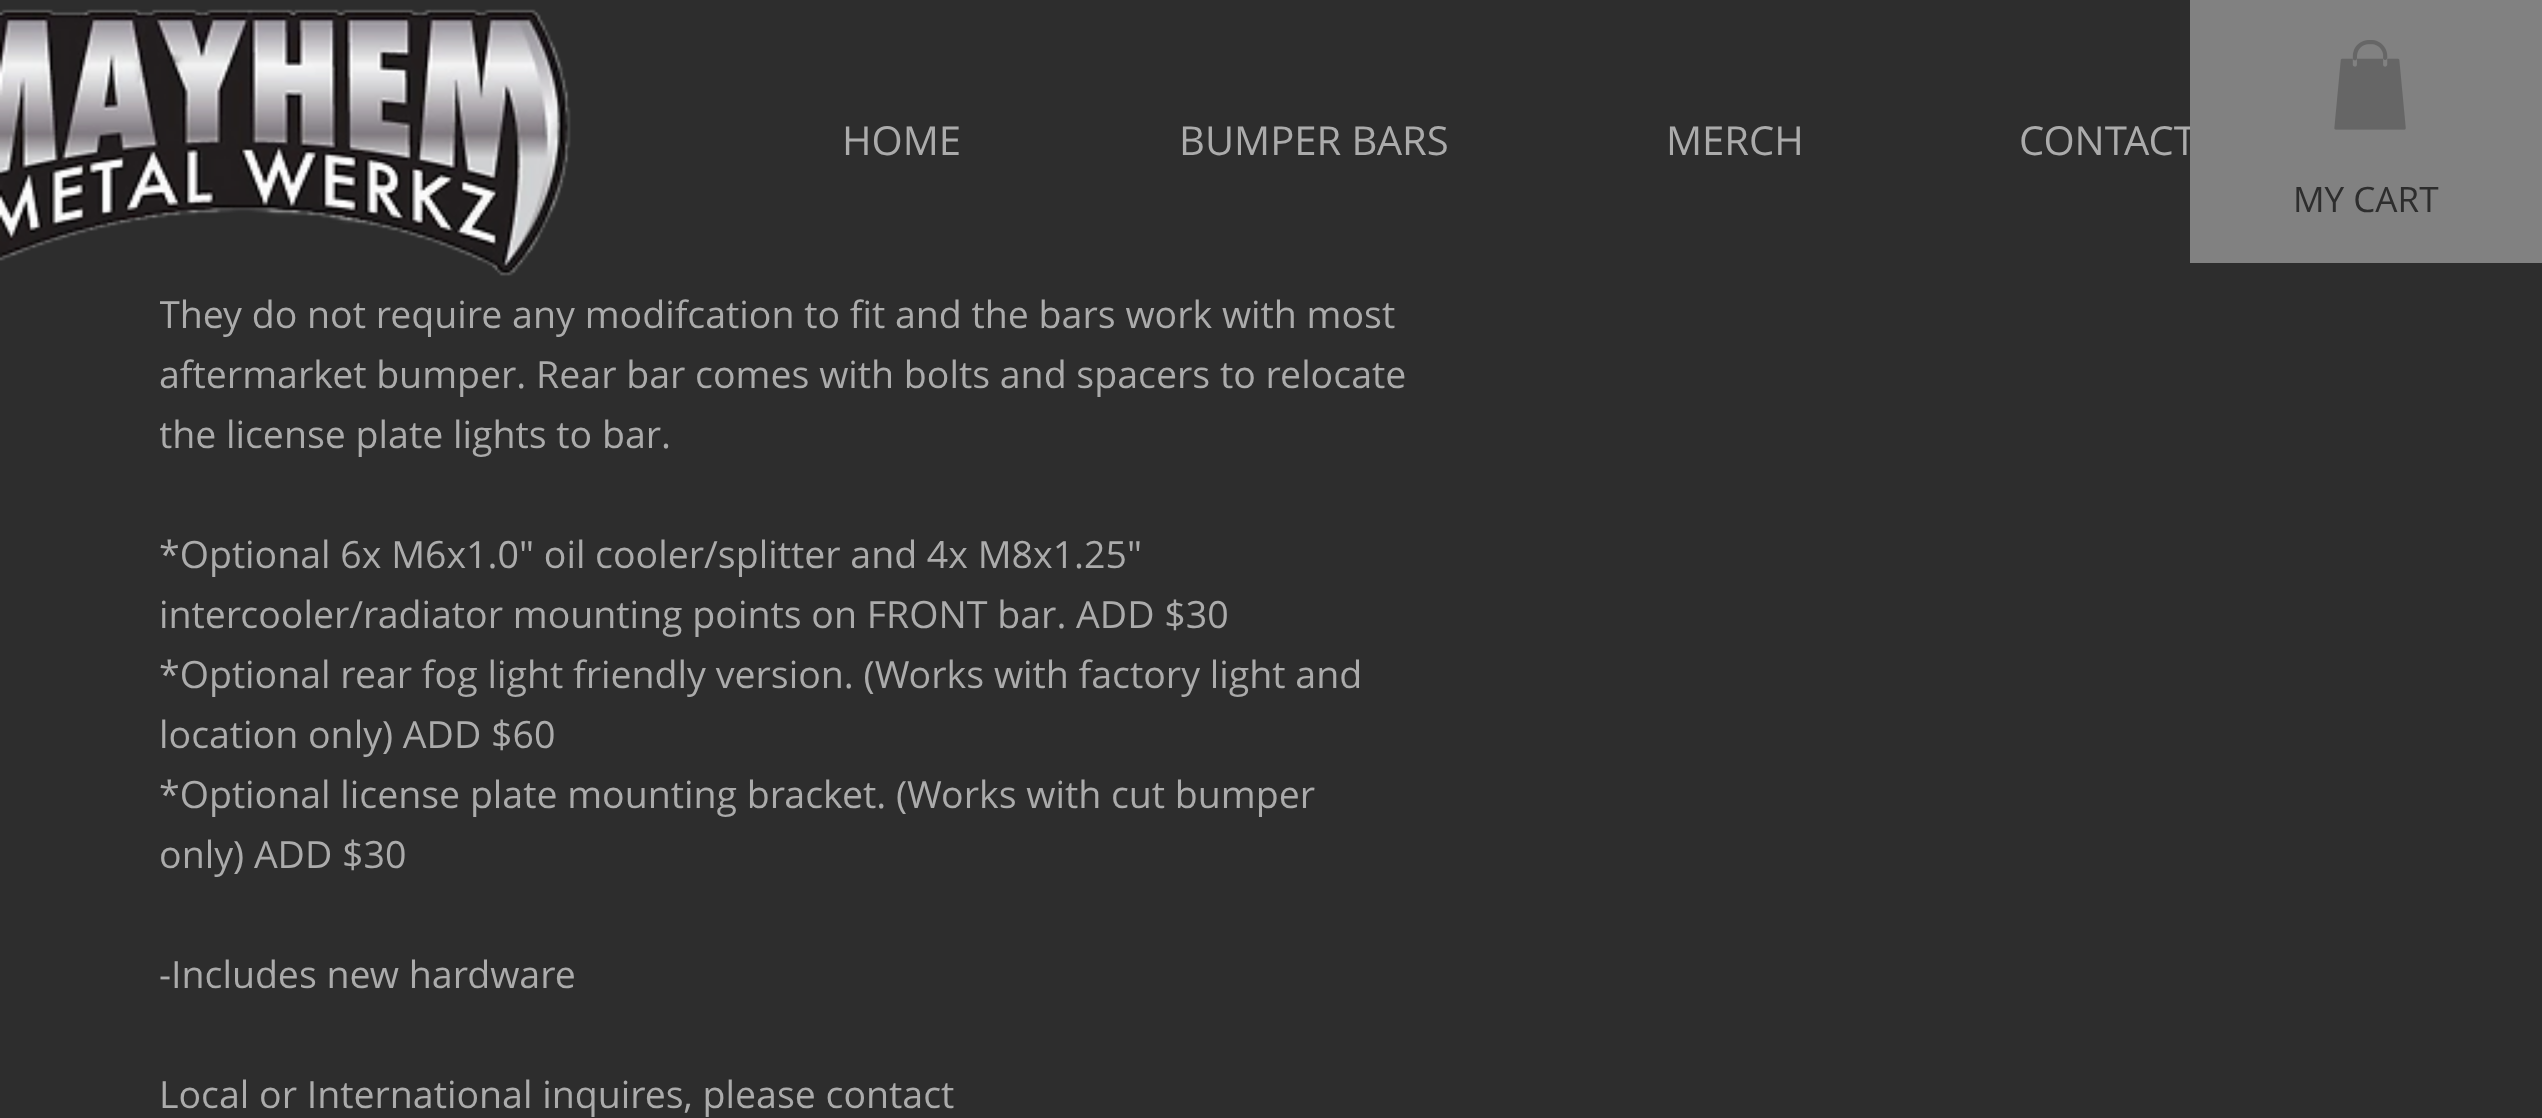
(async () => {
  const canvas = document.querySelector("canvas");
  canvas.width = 2542;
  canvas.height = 1118;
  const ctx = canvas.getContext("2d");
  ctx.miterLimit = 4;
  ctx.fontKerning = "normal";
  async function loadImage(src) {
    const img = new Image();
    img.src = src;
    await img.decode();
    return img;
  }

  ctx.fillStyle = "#2d2d2d";
  ctx.fillRect(0, 0, 2542, 1118);
  ctx.drawImage(await loadImage("img/1.png"), 0, 9, 571, 267);
  ctx.font = "40px Open Sans";
  ctx.fillStyle = "#ababab";
  for (const [text, x, y] of [
    ["HOME", 842, 155],
    ["BUMPER BARS", 1179, 155],
    ["MERCH", 1666, 155],
    ["CONTACT", 2019, 155],
  ]) {
    ctx.fillText(text, x, y);
  }
  ctx.fillStyle = "#818181";
  ctx.fillRect(2190, 0, 352, 263);
  ctx.drawImage(await loadImage("img/2.png"), 2334, 40, 72, 90);
  ctx.font = "35px Open Sans";
  ctx.fillStyle = "#2d2d2d";
  ctx.fillText("MY CART", 2293, 212);
  ctx.save();
  ctx.beginPath();
  ctx.rect(160, 163, 1250, 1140);
  ctx.clip();
  ctx.font = "37.5px Open Sans";
  ctx.fillStyle = "#ababab";
  ctx.fillText("They do not require any modifcation to fit and the bars work with most", 159, 328);
  ctx.restore();
  ctx.font = "37.5px Open Sans";
  ctx.fillStyle = "#ababab";
  ctx.fillText("aftermarket bumper. Rear bar comes with bolts and spacers to relocate", 159, 388);
  ctx.save();
  ctx.beginPath();
  ctx.rect(160, 163, 1250, 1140);
  ctx.clip();
  ctx.fillText("the license plate lights to bar.", 159, 448);
  ctx.restore();
  for (const [text, x, y] of [
    ["*Optional 6x M6x1.0\" oil cooler/splitter and 4x M8x1.25\"", 159, 568],
    ["intercooler/radiator mounting points on FRONT bar. ADD $30", 159, 628],
    ["*Optional rear fog light friendly version. (Works with factory light and", 159, 688],
    ["location only) ADD $60", 159, 748],
    ["*Optional license plate mounting bracket. (Works with cut bumper", 159, 808],
    ["only) ADD $30", 159, 868],
    ["-Includes new hardware", 159, 988],
    ["Local or International inquires, please contact", 159, 1108],
  ]) {
    ctx.fillText(text, x, y);
  }
})();
